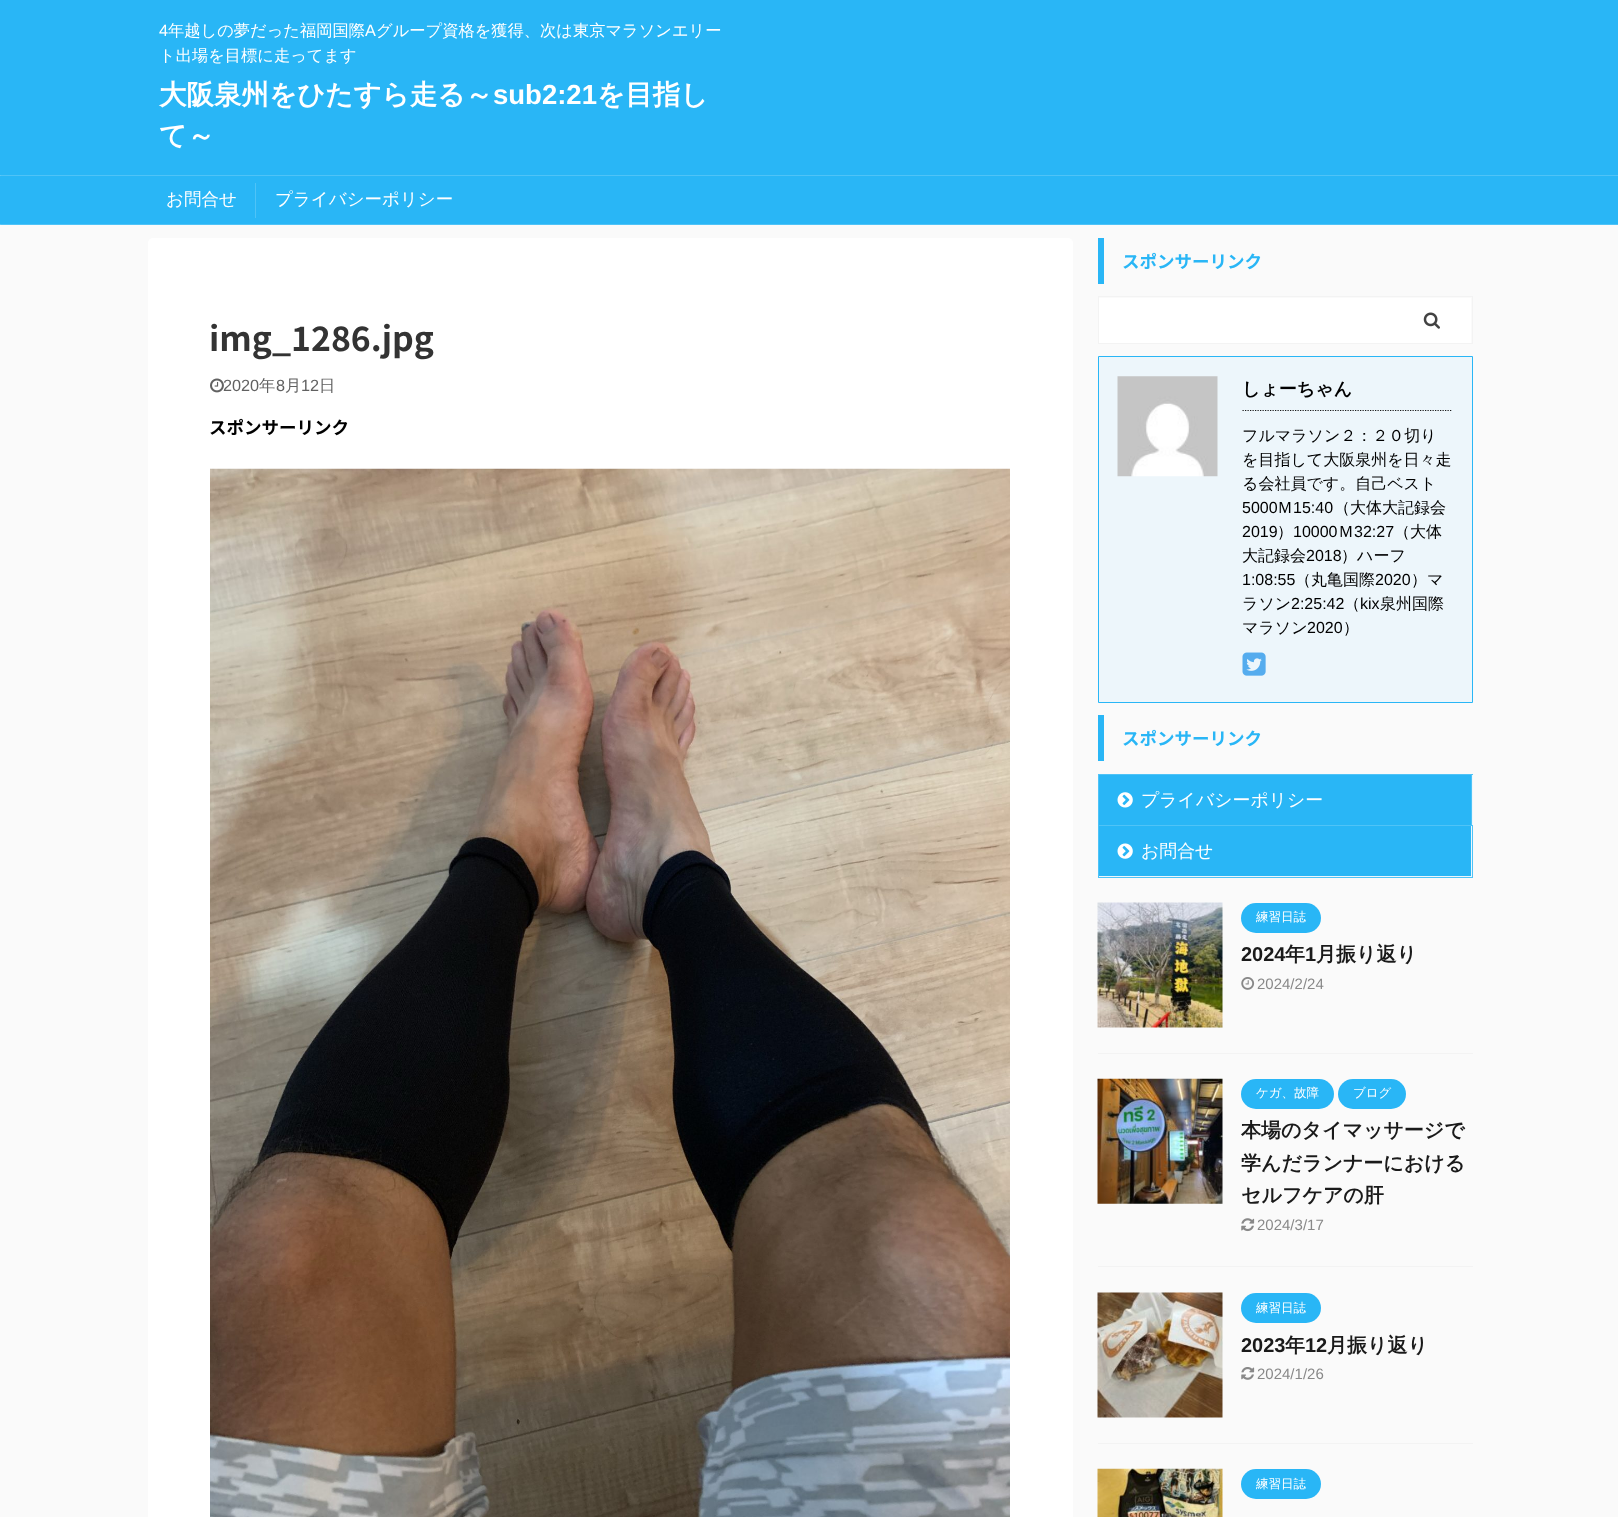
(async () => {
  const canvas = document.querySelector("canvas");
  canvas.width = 1618;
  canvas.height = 1517;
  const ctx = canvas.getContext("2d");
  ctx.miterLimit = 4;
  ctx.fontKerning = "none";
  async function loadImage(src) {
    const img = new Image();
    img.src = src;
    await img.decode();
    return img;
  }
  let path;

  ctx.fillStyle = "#fafafa";
  ctx.fillRect(0, 0, 1618, 1517);
  ctx.fillStyle = "#29b6f6";
  ctx.fillRect(0, 0, 1618, 175);
  ctx.beginPath();
  ctx.roundRect(0, 175, 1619, 50, 1);
  ctx.fill();
  for (const [x, y, w, h, color] of [
    [1, 175, 1617, 1, "#4fc3f7"],
    [1, 224, 1617, 1, "#4fc3f7"],
    [255, 183, 1, 35, "#4fc3f7"],
  ]) {
    ctx.fillStyle = color;
    ctx.fillRect(x, y, w, h);
  }
  ctx.fillStyle = "#ffffff";
  ctx.beginPath();
  ctx.roundRect(148, 238, 925, 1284, 5);
  ctx.fill();
  ctx.drawImage(await loadImage("img/1.png"), 210, 378, 14, 15);
  ctx.drawImage(await loadImage("img/2.png"), 210, 468, 800, 1049);
  ctx.fillStyle = "#29b6f6";
  ctx.fillRect(1098, 238, 6, 46);
  ctx.strokeStyle = "#f3f3f3";
  ctx.strokeRect(1098.5, 296.5, 374, 47);
  ctx.fillStyle = "#ffffff";
  ctx.fillRect(1099, 298, 372, 45);
  ctx.drawImage(await loadImage("img/3.png"), 1423, 312, 17, 17);
  ctx.fillStyle = "#edf6fb";
  ctx.beginPath();
  ctx.rect(1098.5, 356.5, 374, 346);
  ctx.fill();
  ctx.strokeStyle = "#29b6f6";
  ctx.stroke();
  ctx.drawImage(await loadImage("img/4.png"), 1117, 376, 101, 101);
  path = new Path2D("M1242.5 410.5H1452.5");
  ctx.strokeStyle = "#1a1a1a";
  ctx.lineWidth = 1.2;
  ctx.setLineDash([1.25, 1.25]);
  ctx.stroke(path);
  ctx.drawImage(await loadImage("img/5.png"), 1242, 652, 24, 24);
  for (const [x, y, w, h, color] of [
    [1098, 715, 6, 46, "#29b6f6"],
    [1099, 775, 374, 102, "#edf6fb"],
    [1098, 774, 375, 1, "#4fc3f7"],
    [1471, 774, 1, 51, "#4fc3f7"],
    [1098, 774, 1, 51, "#4fc3f7"],
    [1099, 775, 372, 50, "#29b6f6"],
  ]) {
    ctx.fillStyle = color;
    ctx.fillRect(x, y, w, h);
  }
  ctx.drawImage(await loadImage("img/6.png"), 1117, 792, 16, 16);
  ctx.strokeStyle = "#4fc3f7";
  ctx.lineWidth = 1;
  ctx.setLineDash([]);
  ctx.strokeRect(1098.5, 825.5, 374, 52);
  ctx.fillRect(1099, 826, 372, 50);
  ctx.drawImage(await loadImage("img/7.png"), 1117, 843, 16, 16);
  ctx.fillStyle = "#f3f3f3";
  ctx.fillRect(1098, 1053, 375, 1);
  ctx.drawImage(await loadImage("img/8.png"), 1097, 902, 126, 126);
  ctx.fillStyle = "#29b6f6";
  ctx.beginPath();
  ctx.roundRect(1241, 903, 80, 30, 15);
  ctx.fill();
  ctx.drawImage(await loadImage("img/9.png"), 1241, 977, 14, 13);
  ctx.fillStyle = "#f3f3f3";
  ctx.fillRect(1098, 1266, 375, 1);
  ctx.drawImage(await loadImage("img/10.png"), 1097, 1078, 126, 126);
  ctx.fillStyle = "#29b6f6";
  ctx.beginPath();
  ctx.roundRect(1241, 1079, 93, 30, 15);
  ctx.fill();
  ctx.beginPath();
  ctx.roundRect(1338, 1079, 68, 30, 15);
  ctx.fill();
  ctx.drawImage(await loadImage("img/11.png"), 1241, 1218, 14, 14);
  ctx.fillStyle = "#f3f3f3";
  ctx.fillRect(1098, 1443, 375, 1);
  ctx.drawImage(await loadImage("img/12.png"), 1097, 1292, 126, 126);
  ctx.fillStyle = "#29b6f6";
  ctx.beginPath();
  ctx.roundRect(1241, 1293, 80, 30, 15);
  ctx.fill();
  ctx.drawImage(await loadImage("img/13.png"), 1241, 1367, 14, 13);
  ctx.drawImage(await loadImage("img/14.png"), 1097, 1468, 126, 49);
  ctx.beginPath();
  ctx.roundRect(1241, 1469, 80, 30, 15);
  ctx.fill();
  ctx.font = "16.25px Liberation Sans";
  ctx.fillStyle = "#ffffff";
  ctx.fillText("4", 159, 36);
  ctx.font = "500 16.25px WenQuanYi Zen Hei";
  ctx.fillText("年越しの夢だった福岡国際", 168, 36);
  ctx.font = "16.25px Liberation Sans";
  ctx.fillText("A", 365, 36);
  ctx.font = "500 16.25px WenQuanYi Zen Hei";
  ctx.fillText("グループ資格を獲得、次は東京マラソンエリー", 376, 36);
  ctx.fillText("ト出場を目標に走ってます", 159, 61);
  ctx.font = "bold 27.5px WenQuanYi Zen Hei";
  ctx.fillText("大阪泉州をひたすら走る～", 159, 104);
  ctx.font = "bold 27.5px Liberation Sans";
  ctx.fillText("sub2:21", 493, 104);
  ctx.font = "bold 27.5px WenQuanYi Zen Hei";
  ctx.fillText("を目指し", 597, 104);
  ctx.fillText("て～", 159, 145);
  ctx.font = "500 17.5px WenQuanYi Zen Hei";
  ctx.fillText("お問合せ", 166, 205);
  ctx.fillText("プライバシーポリシー", 275, 205);
  ctx.font = "bold 33.75px Noto Sans JP";
  ctx.fillStyle = "#333333";
  ctx.fillText("img_1286.jpg", 209, 351);
  ctx.font = "16.25px Liberation Sans";
  ctx.fillStyle = "#616161";
  ctx.fillText("2020", 223, 391);
  ctx.font = "500 16.25px WenQuanYi Zen Hei";
  ctx.fillText("年", 259, 391);
  ctx.font = "16.25px Liberation Sans";
  ctx.fillText("8", 276, 391);
  ctx.font = "500 16.25px WenQuanYi Zen Hei";
  ctx.fillText("月", 285, 391);
  ctx.font = "16.25px Liberation Sans";
  ctx.fillText("12", 301, 391);
  ctx.font = "500 16.25px WenQuanYi Zen Hei";
  ctx.fillText("日", 319, 391);
  ctx.font = "bold 17.5px Noto Sans JP";
  ctx.fillStyle = "#000000";
  ctx.fillText("スポンサーリンク", 209, 434);
  ctx.fillStyle = "#29b6f6";
  ctx.fillText("スポンサーリンク", 1122, 268);
  ctx.font = "bold 18px WenQuanYi Zen Hei";
  ctx.fillStyle = "#000000";
  ctx.fillText("しょーちゃん", 1242, 395);
  ctx.font = "500 16px WenQuanYi Zen Hei";
  for (const [text, x, y] of [
    ["フルマラソン２：２０切り", 1242, 441],
    ["を目指して大阪泉州を日々走", 1242, 465],
    ["る会社員です。自己ベスト", 1242, 489],
  ]) {
    ctx.fillText(text, x, y);
  }
  ctx.font = "16px Liberation Sans";
  ctx.fillText("5000", 1242, 513);
  ctx.font = "500 16px WenQuanYi Zen Hei";
  ctx.fillText("Ｍ", 1277, 513);
  ctx.font = "16px Liberation Sans";
  ctx.fillText("15:40", 1293, 513);
  ctx.font = "500 16px WenQuanYi Zen Hei";
  ctx.fillText("（大体大記録会", 1334, 513);
  ctx.font = "16px Liberation Sans";
  ctx.fillText("2019", 1242, 537);
  ctx.font = "500 16px WenQuanYi Zen Hei";
  ctx.fillText("）", 1277, 537);
  ctx.font = "16px Liberation Sans";
  ctx.fillText("10000", 1293, 537);
  ctx.font = "500 16px WenQuanYi Zen Hei";
  ctx.fillText("Ｍ", 1338, 537);
  ctx.font = "16px Liberation Sans";
  ctx.fillText("32:27", 1354, 537);
  ctx.font = "500 16px WenQuanYi Zen Hei";
  ctx.fillText("（大体", 1394, 537);
  ctx.fillText("大記録会", 1242, 561);
  ctx.font = "16px Liberation Sans";
  ctx.fillText("2018", 1306, 561);
  ctx.font = "500 16px WenQuanYi Zen Hei";
  ctx.fillText("）ハーフ", 1341, 561);
  ctx.font = "16px Liberation Sans";
  ctx.fillText("1:08:55", 1242, 585);
  ctx.font = "500 16px WenQuanYi Zen Hei";
  ctx.fillText("（丸亀国際", 1295, 585);
  ctx.font = "16px Liberation Sans";
  ctx.fillText("2020", 1375, 585);
  ctx.font = "500 16px WenQuanYi Zen Hei";
  ctx.fillText("）マ", 1411, 585);
  ctx.fillText("ラソン", 1242, 609);
  ctx.font = "16px Liberation Sans";
  ctx.fillText("2:25:42", 1291, 609);
  ctx.font = "500 16px WenQuanYi Zen Hei";
  ctx.fillText("（", 1344, 609);
  ctx.font = "16px Liberation Sans";
  ctx.fillText("kix", 1360, 609);
  ctx.font = "500 16px WenQuanYi Zen Hei";
  ctx.fillText("泉州国際", 1380, 609);
  ctx.fillText("マラソン", 1242, 633);
  ctx.font = "16px Liberation Sans";
  ctx.fillText("2020", 1307, 633);
  ctx.font = "500 16px WenQuanYi Zen Hei";
  ctx.fillText("）", 1343, 633);
  ctx.font = "bold 17.5px Noto Sans JP";
  ctx.fillStyle = "#29b6f6";
  ctx.fillText("スポンサーリンク", 1122, 745);
  ctx.font = "500 17.9px WenQuanYi Zen Hei";
  ctx.fillStyle = "#ffffff";
  ctx.fillText("プライバシーポリシー", 1141, 806);
  ctx.fillText("お問合せ", 1141, 857);
  ctx.font = "500 12.5px WenQuanYi Zen Hei";
  ctx.fillText("練習日誌", 1256, 921);
  ctx.font = "bold 20px Liberation Sans";
  ctx.fillStyle = "#1a1a1a";
  ctx.fillText("2024", 1241, 961);
  ctx.font = "bold 20px WenQuanYi Zen Hei";
  ctx.fillText("年", 1285, 961);
  ctx.font = "bold 20px Liberation Sans";
  ctx.fillText("1", 1305, 961);
  ctx.font = "bold 20px WenQuanYi Zen Hei";
  ctx.fillText("月振り返り", 1316, 961);
  ctx.font = "15px Liberation Sans";
  ctx.fillStyle = "#888888";
  ctx.fillText("2024/2/24", 1257, 989);
  ctx.font = "500 12.5px WenQuanYi Zen Hei";
  ctx.fillStyle = "#ffffff";
  ctx.fillText("ケガ、故障", 1256, 1097);
  ctx.fillText("ブログ", 1353, 1097);
  ctx.font = "bold 20px WenQuanYi Zen Hei";
  ctx.fillStyle = "#1a1a1a";
  for (const [text, x, y] of [
    ["本場のタイマッサージで", 1241, 1137],
    ["学んだランナーにおける", 1241, 1170],
    ["セルフケアの肝", 1241, 1202],
  ]) {
    ctx.fillText(text, x, y);
  }
  ctx.font = "15px Liberation Sans";
  ctx.fillStyle = "#888888";
  ctx.fillText("2024/3/17", 1257, 1230);
  ctx.font = "500 12.5px WenQuanYi Zen Hei";
  ctx.fillStyle = "#ffffff";
  ctx.fillText("練習日誌", 1256, 1312);
  ctx.font = "bold 20px Liberation Sans";
  ctx.fillStyle = "#1a1a1a";
  ctx.fillText("2023", 1241, 1352);
  ctx.font = "bold 20px WenQuanYi Zen Hei";
  ctx.fillText("年", 1285, 1352);
  ctx.font = "bold 20px Liberation Sans";
  ctx.fillText("12", 1305, 1352);
  ctx.font = "bold 20px WenQuanYi Zen Hei";
  ctx.fillText("月振り返り", 1327, 1352);
  ctx.font = "15px Liberation Sans";
  ctx.fillStyle = "#888888";
  ctx.fillText("2024/1/26", 1257, 1379);
  ctx.font = "500 12.5px WenQuanYi Zen Hei";
  ctx.fillStyle = "#ffffff";
  ctx.fillText("練習日誌", 1256, 1488);
})();
